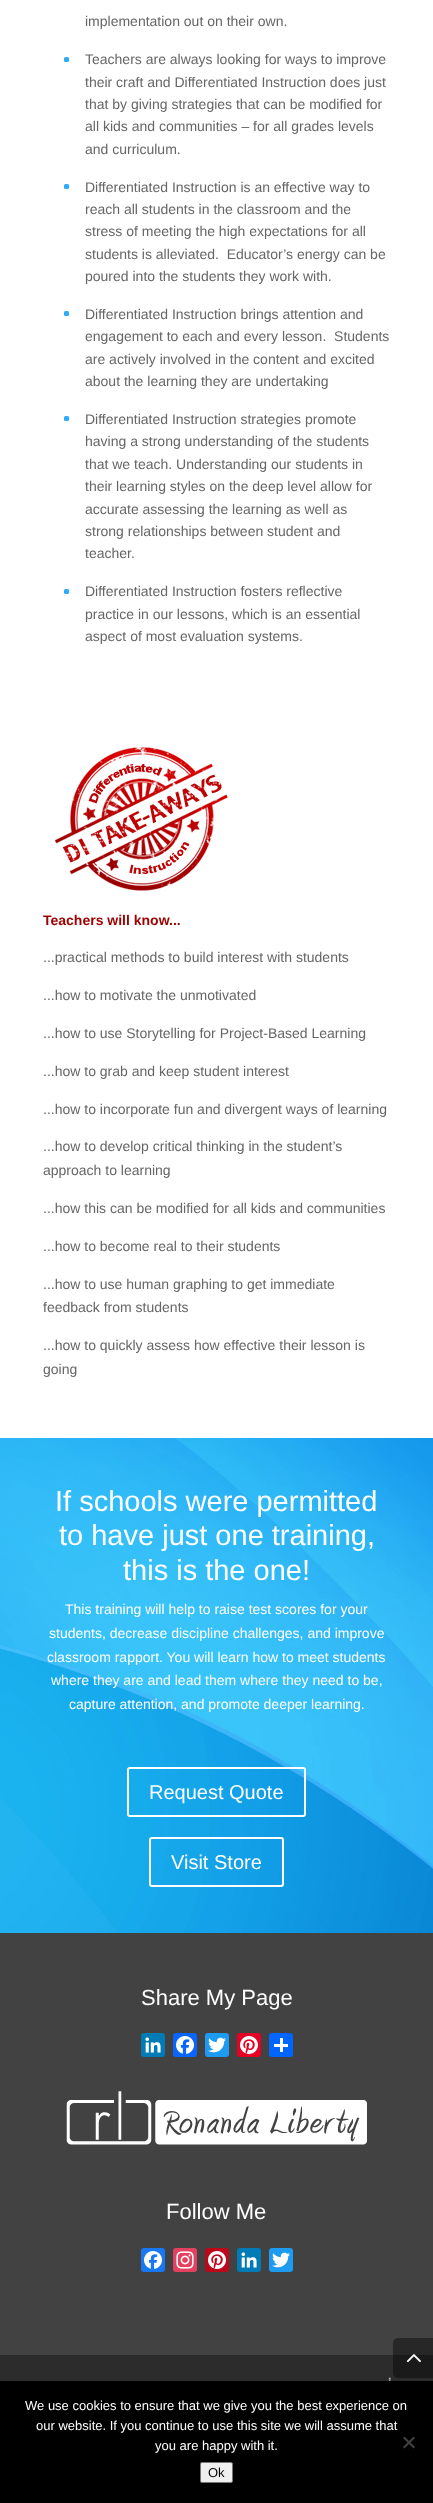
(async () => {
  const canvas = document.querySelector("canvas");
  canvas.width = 433;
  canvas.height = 2503;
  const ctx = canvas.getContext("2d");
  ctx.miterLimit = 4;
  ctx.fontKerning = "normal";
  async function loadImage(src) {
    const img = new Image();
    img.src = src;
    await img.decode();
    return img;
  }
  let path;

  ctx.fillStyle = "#424242";
  ctx.fillRect(0, 0, 433, 2503);
  ctx.fillStyle = "#ffffff";
  ctx.fillRect(0, 0, 433, 1438);
  ctx.fillStyle = "#2caafc";
  ctx.beginPath();
  ctx.roundRect(64, 57, 5, 5, 1.5);
  ctx.fill();
  ctx.beginPath();
  ctx.roundRect(64, 184, 5, 5, 1.5);
  ctx.fill();
  ctx.beginPath();
  ctx.roundRect(64, 311, 5, 5, 1.5);
  ctx.fill();
  ctx.beginPath();
  ctx.roundRect(64, 416, 5, 5, 1.5);
  ctx.fill();
  ctx.beginPath();
  ctx.roundRect(64, 589, 5, 5, 1.5);
  ctx.fill();
  ctx.drawImage(await loadImage("img/1.png"), 54, 747, 174, 144);
  ctx.drawImage(await loadImage("img/2.png"), 0, 1438, 433, 495);
  ctx.beginPath();
  ctx.roundRect(128, 1768, 177, 48, 2);
  ctx.strokeStyle = "#ffffff";
  ctx.lineWidth = 2;
  ctx.stroke();
  ctx.beginPath();
  ctx.roundRect(150, 1838, 133, 48, 2);
  ctx.stroke();
  ctx.fillStyle = "#007bb5";
  ctx.beginPath();
  ctx.roundRect(141, 2033, 24, 24, 3);
  ctx.fill();
  ctx.drawImage(await loadImage("img/3.png"), 145, 2037, 16, 16);
  ctx.fillStyle = "#0866ff";
  ctx.beginPath();
  ctx.roundRect(173, 2033, 24, 24, 3);
  ctx.fill();
  ctx.drawImage(await loadImage("img/4.png"), 176, 2036, 18, 18);
  ctx.fillStyle = "#1d9bf0";
  ctx.beginPath();
  ctx.roundRect(205, 2033, 24, 24, 3);
  ctx.fill();
  ctx.drawImage(await loadImage("img/5.png"), 208, 2037, 18, 16);
  ctx.fillStyle = "#e60023";
  ctx.beginPath();
  ctx.roundRect(237, 2033, 24, 24, 3);
  ctx.fill();
  ctx.drawImage(await loadImage("img/6.png"), 240, 2036, 18, 18);
  ctx.fillStyle = "#0166ff";
  ctx.beginPath();
  ctx.roundRect(269, 2033, 24, 24, 3);
  ctx.fill();
  ctx.fillStyle = "#ffffff";
  ctx.fillRect(280, 2038, 3, 14);
  ctx.fillRect(274, 2044, 14, 3);
  ctx.drawImage(await loadImage("img/7.png"), 66, 2091, 301, 54);
  ctx.fillStyle = "#1877f2";
  ctx.beginPath();
  ctx.roundRect(141, 2248, 24, 24, 3);
  ctx.fill();
  ctx.drawImage(await loadImage("img/8.png"), 144, 2251, 18, 18);
  ctx.fillStyle = "#e4405f";
  ctx.beginPath();
  ctx.roundRect(173, 2248, 24, 24, 3);
  ctx.fill();
  ctx.drawImage(await loadImage("img/9.png"), 176, 2251, 18, 18);
  ctx.fillStyle = "#bd081c";
  ctx.beginPath();
  ctx.roundRect(205, 2248, 24, 24, 3);
  ctx.fill();
  ctx.drawImage(await loadImage("img/10.png"), 208, 2251, 18, 18);
  ctx.fillStyle = "#007bb5";
  ctx.beginPath();
  ctx.roundRect(237, 2248, 24, 24, 3);
  ctx.fill();
  ctx.drawImage(await loadImage("img/3.png"), 241, 2252, 16, 16);
  ctx.fillStyle = "#1d9bf0";
  ctx.beginPath();
  ctx.roundRect(269, 2248, 24, 24, 3);
  ctx.fill();
  ctx.drawImage(await loadImage("img/5.png"), 272, 2252, 18, 16);
  ctx.fillStyle = "#2c2c2c";
  ctx.fillRect(0, 2355, 433, 26);
  ctx.fillStyle = "rgba(0, 0, 0, 0.4)";
  ctx.beginPath();
  ctx.roundRect(393, 2338, 40, 40, [5, 0, 0, 5]);
  ctx.fill();
  ctx.drawImage(await loadImage("img/11.png"), 406, 2354, 15, 9);
  ctx.font = "14px Liberation Sans";
  ctx.fillStyle = "#666666";
  for (const [text, x, y] of [
    ["implementation out on their own.", 85, 26],
    ["Teachers are always looking for ways to improve", 85, 64],
    ["their craft and Differentiated Instruction does just", 85, 87],
    ["that by giving strategies that can be modified for", 85, 109],
    ["all kids and communities – for all grades levels", 85, 131],
    ["and curriculum.", 85, 154],
    ["Differentiated Instruction is an effective way to", 85, 192],
    ["reach all students in the classroom and the", 85, 214],
    ["stress of meeting the high expectations for all", 85, 236],
    ["students is alleviated.  Educator’s energy can be", 85, 259],
    ["poured into the students they work with.", 85, 281],
    ["Differentiated Instruction brings attention and", 85, 319],
    ["engagement to each and every lesson.  Students", 85, 341],
    ["are actively involved in the content and excited", 85, 364],
    ["about the learning they are undertaking", 85, 386],
    ["Differentiated Instruction strategies promote", 85, 424],
    ["having a strong understanding of the students", 85, 446],
    ["that we teach. Understanding our students in", 85, 469],
    ["their learning styles on the deep level allow for", 85, 491],
    ["accurate assessing the learning as well as", 85, 514],
    ["strong relationships between student and", 85, 536],
    ["teacher.", 85, 558],
    ["Differentiated Instruction fosters reflective", 85, 596],
    ["practice in our lessons, which is an essential", 85, 619],
    ["aspect of most evaluation systems.", 85, 641],
  ]) {
    ctx.fillText(text, x, y);
  }
  ctx.font = "bold 14px Liberation Sans";
  ctx.fillStyle = "#9e0101";
  ctx.fillText("Teachers will know...", 43, 925);
  ctx.font = "14px Liberation Sans";
  ctx.fillStyle = "#666666";
  for (const [text, x, y] of [
    ["...practical methods to build interest with students", 43, 962],
    ["...how to motivate the unmotivated", 43, 1000],
    ["...how to use Storytelling for Project-Based Learning", 43, 1038],
    ["...how to grab and keep student interest", 43, 1076],
    ["...how to incorporate fun and divergent ways of learning", 43, 1114],
    ["...how to develop critical thinking in the student’s", 43, 1151],
    ["approach to learning", 43, 1175],
    ["...how this can be modified for all kids and communities", 43, 1213],
    ["...how to become real to their students", 43, 1251],
    ["...how to use human graphing to get immediate", 43, 1289],
    ["feedback from students", 43, 1312],
    ["...how to quickly assess how effective their lesson is", 43, 1350],
    ["going", 43, 1374],
  ]) {
    ctx.fillText(text, x, y);
  }
  ctx.font = "29px Liberation Sans";
  ctx.fillStyle = "#ffffff";
  for (const [text, x, y] of [
    ["If schools were permitted", 55, 1511],
    ["to have just one training,", 59, 1545],
    ["this is the one!", 123, 1580],
  ]) {
    ctx.fillText(text, x, y);
  }
  ctx.font = "14px Liberation Sans";
  for (const [text, x, y] of [
    ["This training will help to raise test scores for your", 65, 1614],
    ["students, decrease discipline challenges, and improve", 49, 1638],
    ["classroom rapport. You will learn how to meet students", 47, 1662],
    ["where they are and lead them where they need to be,", 51, 1685],
    ["capture attention, and promote deeper learning.", 69, 1709],
  ]) {
    ctx.fillText(text, x, y);
  }
  ctx.font = "20px Liberation Sans";
  ctx.fillText("Request Quote", 149, 1799);
  ctx.fillText("Visit Store", 171, 1869);
  ctx.font = "22px Liberation Sans";
  ctx.fillText("Share My Page", 141, 2005);
  ctx.fillText("Follow Me", 166, 2219);
  ctx.font = "bold 12px Liberation Sans";
  ctx.fillStyle = "#bbbbbb";
  ctx.fillText("’", 388, 2386);
  ctx.fillStyle = "#000000";
  ctx.fillRect(0, 2381, 433, 122);
  ctx.font = "13px Liberation Sans";
  ctx.fillStyle = "#ffffff";
  for (const [text, x, y] of [
    ["We use cookies to ensure that we give you the best experience on", 25, 2410],
    ["our website. If you continue to use this site we will assume that", 36, 2430],
    ["you are happy with it.", 155, 2450],
  ]) {
    ctx.fillText(text, x, y);
  }
  ctx.fillStyle = "#404040";
  path = new Path2D("M413.5 2436.5L415 2438L404.5 2448.5L403 2447Z");
  ctx.fill(path);
  path = new Path2D("M403 2438L404.5 2436.5L415 2447L413.5 2448.5Z");
  ctx.fill(path);
  ctx.fillStyle = "#efefef";
  ctx.beginPath();
  ctx.roundRect(200.5, 2462.5, 32, 20, 1.5);
  ctx.fill();
  ctx.strokeStyle = "#767676";
  ctx.lineWidth = 1;
  ctx.stroke();
  ctx.fillStyle = "#000000";
  ctx.fillText("Ok", 208, 2477);
})();
